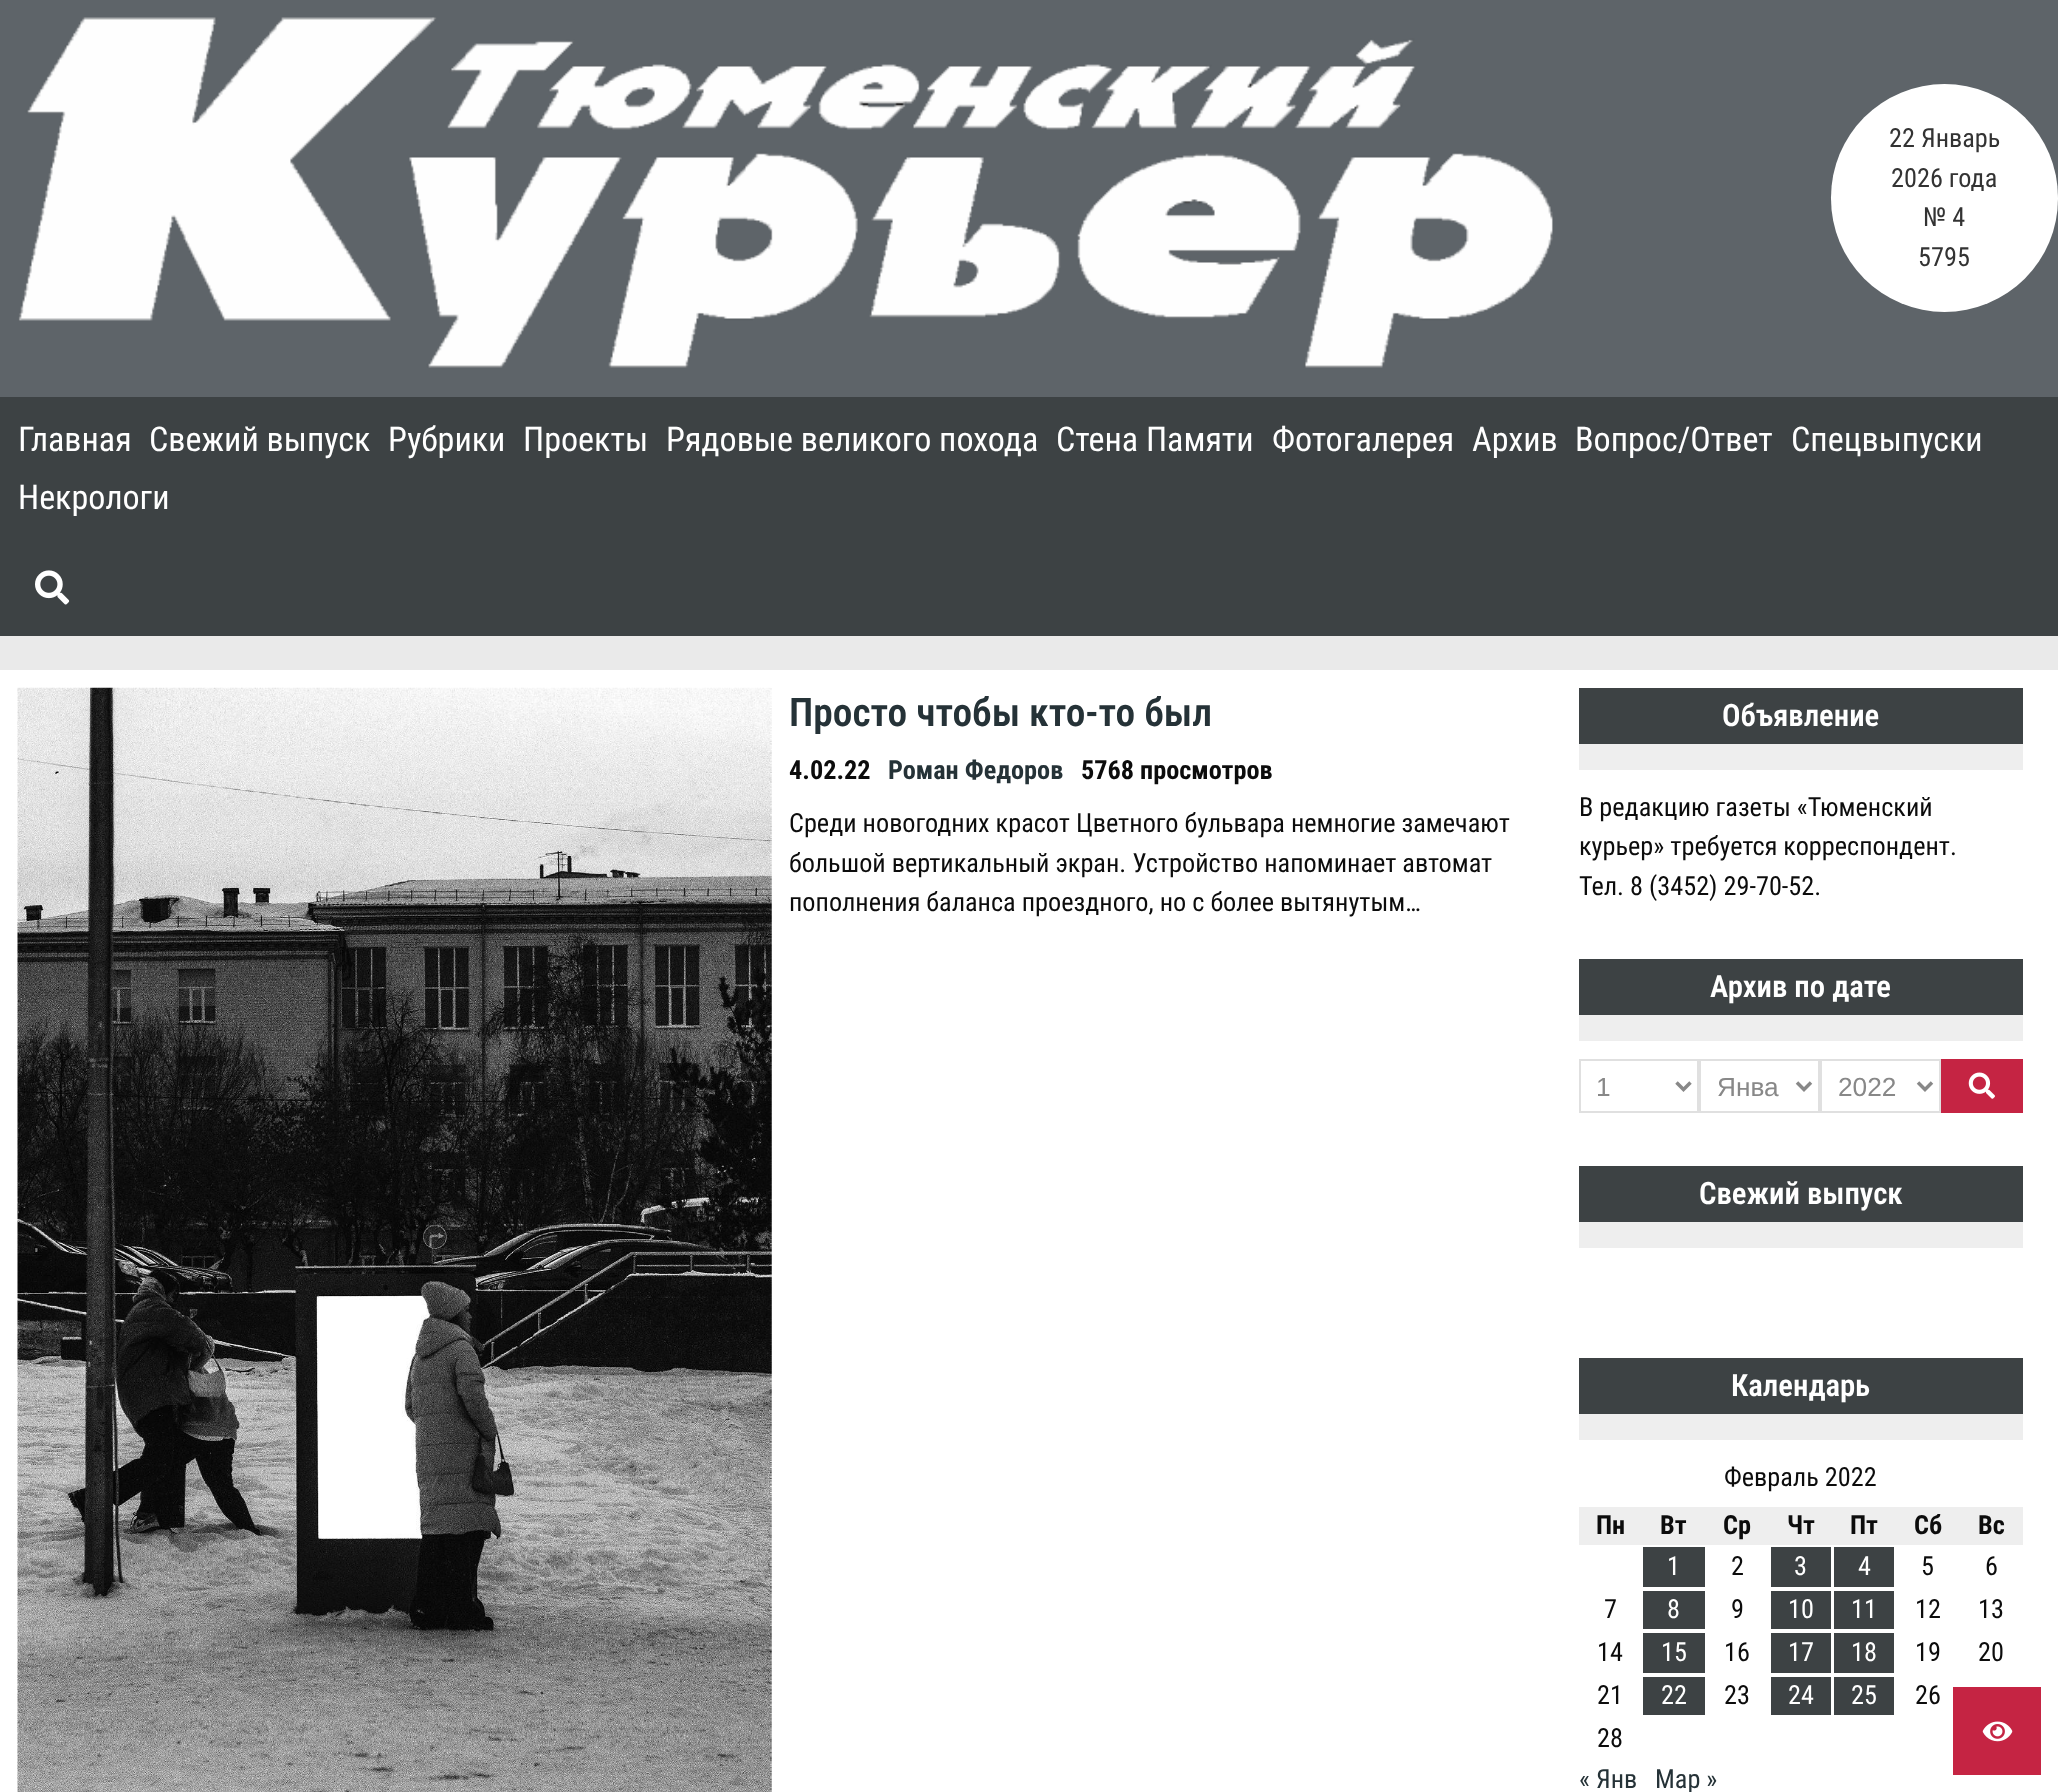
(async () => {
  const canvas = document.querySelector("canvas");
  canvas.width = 2058;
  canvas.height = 1792;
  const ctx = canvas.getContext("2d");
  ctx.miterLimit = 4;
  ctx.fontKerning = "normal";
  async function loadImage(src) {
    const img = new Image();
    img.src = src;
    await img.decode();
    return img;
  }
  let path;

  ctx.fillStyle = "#eaeaea";
  ctx.fillRect(0, 0, 2058, 1792);
  ctx.fillStyle = "#3d4244";
  ctx.fillRect(0, 397, 2058, 239);
  ctx.fillStyle = "#5e6469";
  ctx.fillRect(0, 0, 2058, 397);
  ctx.drawImage(await loadImage("img/1.png"), 18, 17, 1535, 351);
  ctx.fillStyle = "#ffffff";
  ctx.beginPath();
  ctx.roundRect(1831, 84, 227, 228, 113.5);
  ctx.fill();
  ctx.drawImage(await loadImage("img/2.png"), 35, 570, 35, 35);
  ctx.fillRect(0, 670, 2058, 1122);
  ctx.drawImage(await loadImage("img/3.png"), 17, 687, 755, 1105);
  for (const [x, y, w, h, color] of [
    [1579, 688, 444, 56, "#3d4244"],
    [1579, 744, 444, 26, "#eeeeee"],
    [1579, 959, 444, 56, "#3d4244"],
    [1579, 1015, 444, 26, "#eeeeee"],
  ]) {
    ctx.fillStyle = color;
    ctx.fillRect(x, y, w, h);
  }
  ctx.strokeStyle = "#e0e0e0";
  ctx.lineWidth = 2;
  ctx.strokeRect(1580, 1060, 118, 52);
  path = new Path2D("M1676.5 1082.5L1683.5 1089.5L1690.5 1082.5");
  ctx.strokeStyle = "#888888";
  ctx.lineWidth = 3.5;
  ctx.stroke(path);
  ctx.strokeStyle = "#e0e0e0";
  ctx.lineWidth = 2;
  ctx.strokeRect(1700, 1060, 119, 52);
  path = new Path2D("M1797 1082.5L1804 1089.5L1811 1082.5");
  ctx.strokeStyle = "#888888";
  ctx.lineWidth = 3.5;
  ctx.stroke(path);
  ctx.strokeStyle = "#e0e0e0";
  ctx.lineWidth = 2;
  ctx.strokeRect(1821, 1060, 119, 52);
  path = new Path2D("M1918 1082.5L1925 1089.5L1932 1082.5");
  ctx.strokeStyle = "#888888";
  ctx.lineWidth = 3.5;
  ctx.stroke(path);
  ctx.fillStyle = "#c52443";
  ctx.fillRect(1941, 1059, 82, 54);
  ctx.drawImage(await loadImage("img/4.png"), 1968, 1072, 27, 27);
  for (const [x, y, w, h, color] of [
    [1579, 1166, 444, 56, "#3d4244"],
    [1579, 1222, 444, 26, "#eeeeee"],
    [1579, 1358, 444, 56, "#3d4244"],
    [1579, 1414, 444, 26, "#eeeeee"],
    [1579, 1507, 444, 38, "#eeeeee"],
    [1643, 1547, 62, 40, "#3d4244"],
    [1771, 1547, 60, 40, "#3d4244"],
    [1834, 1547, 60, 40, "#3d4244"],
    [1643, 1591, 62, 38, "#3d4244"],
    [1771, 1591, 60, 38, "#3d4244"],
    [1834, 1591, 60, 38, "#3d4244"],
    [1643, 1633, 62, 40, "#3d4244"],
    [1771, 1633, 60, 40, "#3d4244"],
    [1834, 1633, 60, 40, "#3d4244"],
    [1643, 1677, 62, 38, "#3d4244"],
    [1771, 1677, 60, 38, "#3d4244"],
    [1834, 1677, 60, 38, "#3d4244"],
    [1953, 1687, 88, 88, "#c52443"],
  ]) {
    ctx.fillStyle = color;
    ctx.fillRect(x, y, w, h);
  }
  ctx.drawImage(await loadImage("img/5.png"), 1982, 1721, 31, 21);
  ctx.font = "26.25px Roboto Condensed";
  ctx.fillStyle = "#333333";
  for (const [text, x, y] of [
    ["22 Январь", 1889, 147],
    ["2026 года", 1891, 187],
    ["№ 4", 1923, 226],
    ["5795", 1918, 266],
  ]) {
    ctx.fillText(text, x, y);
  }
  ctx.font = "34.1px Roboto Condensed";
  ctx.fillStyle = "#ffffff";
  for (const [text, x, y] of [
    ["Главная", 18, 451],
    ["Свежий выпуск", 149, 451],
    ["Рубрики", 388, 451],
    ["Проекты", 523, 451],
    ["Рядовые великого похода", 666, 451],
    ["Стена Памяти", 1056, 451],
    ["Фотогалерея", 1272, 451],
    ["Архив", 1472, 451],
    ["Вопрос/Ответ", 1575, 451],
    ["Спецвыпуски", 1791, 451],
    ["Некрологи", 18, 509],
  ]) {
    ctx.fillText(text, x, y);
  }
  ctx.font = "600 39.4px Roboto Condensed";
  ctx.fillStyle = "#253237";
  ctx.fillText("Просто чтобы кто-то был", 789, 726);
  ctx.font = "bold 26.25px Roboto Condensed";
  ctx.fillStyle = "#0c0c0c";
  ctx.fillText("4.02.22", 789, 779);
  ctx.fillStyle = "#253237";
  ctx.fillText("Роман Федоров", 888, 779);
  ctx.fillStyle = "#0c0c0c";
  ctx.fillText("5768 просмотров", 1081, 779);
  ctx.font = "26.25px Roboto Condensed";
  for (const [text, x, y] of [
    ["Среди новогодних красот Цветного бульвара немногие замечают", 789, 832],
    ["большой вертикальный экран. Устройство напоминает автомат", 789, 872],
    ["пополнения баланса проездного, но с более вытянутым…", 789, 911],
  ]) {
    ctx.fillText(text, x, y);
  }
  ctx.font = "600 30.75px Roboto Condensed";
  ctx.fillStyle = "#ffffff";
  ctx.fillText("Объявление", 1722, 726);
  ctx.font = "26.25px Roboto Condensed";
  ctx.fillStyle = "#0c0c0c";
  for (const [text, x, y] of [
    ["В редакцию газеты «Тюменский", 1579, 816],
    ["курьер» требуется корреспондент.", 1579, 855],
    ["Тел. 8 (3452) 29-70-52.", 1579, 895],
  ]) {
    ctx.fillText(text, x, y);
  }
  ctx.font = "600 30.75px Roboto Condensed";
  ctx.fillStyle = "#ffffff";
  ctx.fillText("Архив по дате", 1710, 997);
  ctx.font = "26.25px Liberation Sans";
  ctx.fillStyle = "#888888";
  for (const [text, x, y] of [
    ["1", 1596, 1096],
    ["Янва", 1717, 1096],
    ["2022", 1838, 1096],
  ]) {
    ctx.fillText(text, x, y);
  }
  ctx.font = "600 30.75px Roboto Condensed";
  ctx.fillStyle = "#ffffff";
  ctx.fillText("Свежий выпуск", 1699, 1204);
  ctx.fillText("Календарь", 1731, 1396);
  ctx.font = "26.25px Roboto Condensed";
  ctx.fillStyle = "#0c0c0c";
  ctx.fillText("Февраль 2022", 1724, 1486);
  ctx.font = "bold 26.25px Roboto Condensed";
  for (const [text, x, y] of [
    ["Пн", 1596, 1534],
    ["Вт", 1660, 1534],
    ["Ср", 1723, 1534],
    ["Чт", 1787, 1534],
    ["Пт", 1850, 1534],
    ["Сб", 1914, 1534],
    ["Вс", 1978, 1534],
  ]) {
    ctx.fillText(text, x, y);
  }
  ctx.font = "26.25px Roboto Condensed";
  ctx.fillStyle = "#ffffff";
  ctx.fillText("1", 1667, 1575);
  ctx.fillStyle = "#0c0c0c";
  ctx.fillText("2", 1731, 1575);
  ctx.fillStyle = "#ffffff";
  ctx.fillText("3", 1794, 1575);
  ctx.fillText("4", 1858, 1575);
  ctx.fillStyle = "#0c0c0c";
  for (const [text, x, y] of [
    ["5", 1921, 1575],
    ["6", 1985, 1575],
    ["7", 1604, 1618],
  ]) {
    ctx.fillText(text, x, y);
  }
  ctx.fillStyle = "#ffffff";
  ctx.fillText("8", 1667, 1618);
  ctx.fillStyle = "#0c0c0c";
  ctx.fillText("9", 1731, 1618);
  ctx.fillStyle = "#ffffff";
  ctx.fillText("10", 1788, 1618);
  ctx.fillText("11", 1851, 1618);
  ctx.fillStyle = "#0c0c0c";
  for (const [text, x, y] of [
    ["12", 1915, 1618],
    ["13", 1978, 1618],
    ["14", 1597, 1661],
  ]) {
    ctx.fillText(text, x, y);
  }
  ctx.fillStyle = "#ffffff";
  ctx.fillText("15", 1661, 1661);
  ctx.fillStyle = "#0c0c0c";
  ctx.fillText("16", 1724, 1661);
  ctx.fillStyle = "#ffffff";
  ctx.fillText("17", 1788, 1661);
  ctx.fillText("18", 1851, 1661);
  ctx.fillStyle = "#0c0c0c";
  for (const [text, x, y] of [
    ["19", 1915, 1661],
    ["20", 1978, 1661],
    ["21", 1597, 1704],
  ]) {
    ctx.fillText(text, x, y);
  }
  ctx.fillStyle = "#ffffff";
  ctx.fillText("22", 1661, 1704);
  ctx.fillStyle = "#0c0c0c";
  ctx.fillText("23", 1724, 1704);
  ctx.fillStyle = "#ffffff";
  ctx.fillText("24", 1788, 1704);
  ctx.fillText("25", 1851, 1704);
  ctx.fillStyle = "#0c0c0c";
  ctx.fillText("26", 1915, 1704);
  ctx.fillText("28", 1597, 1747);
  ctx.fillStyle = "#253237";
  ctx.fillText("« Янв", 1579, 1788);
  ctx.fillText("Мар »", 1655, 1788);
})();
